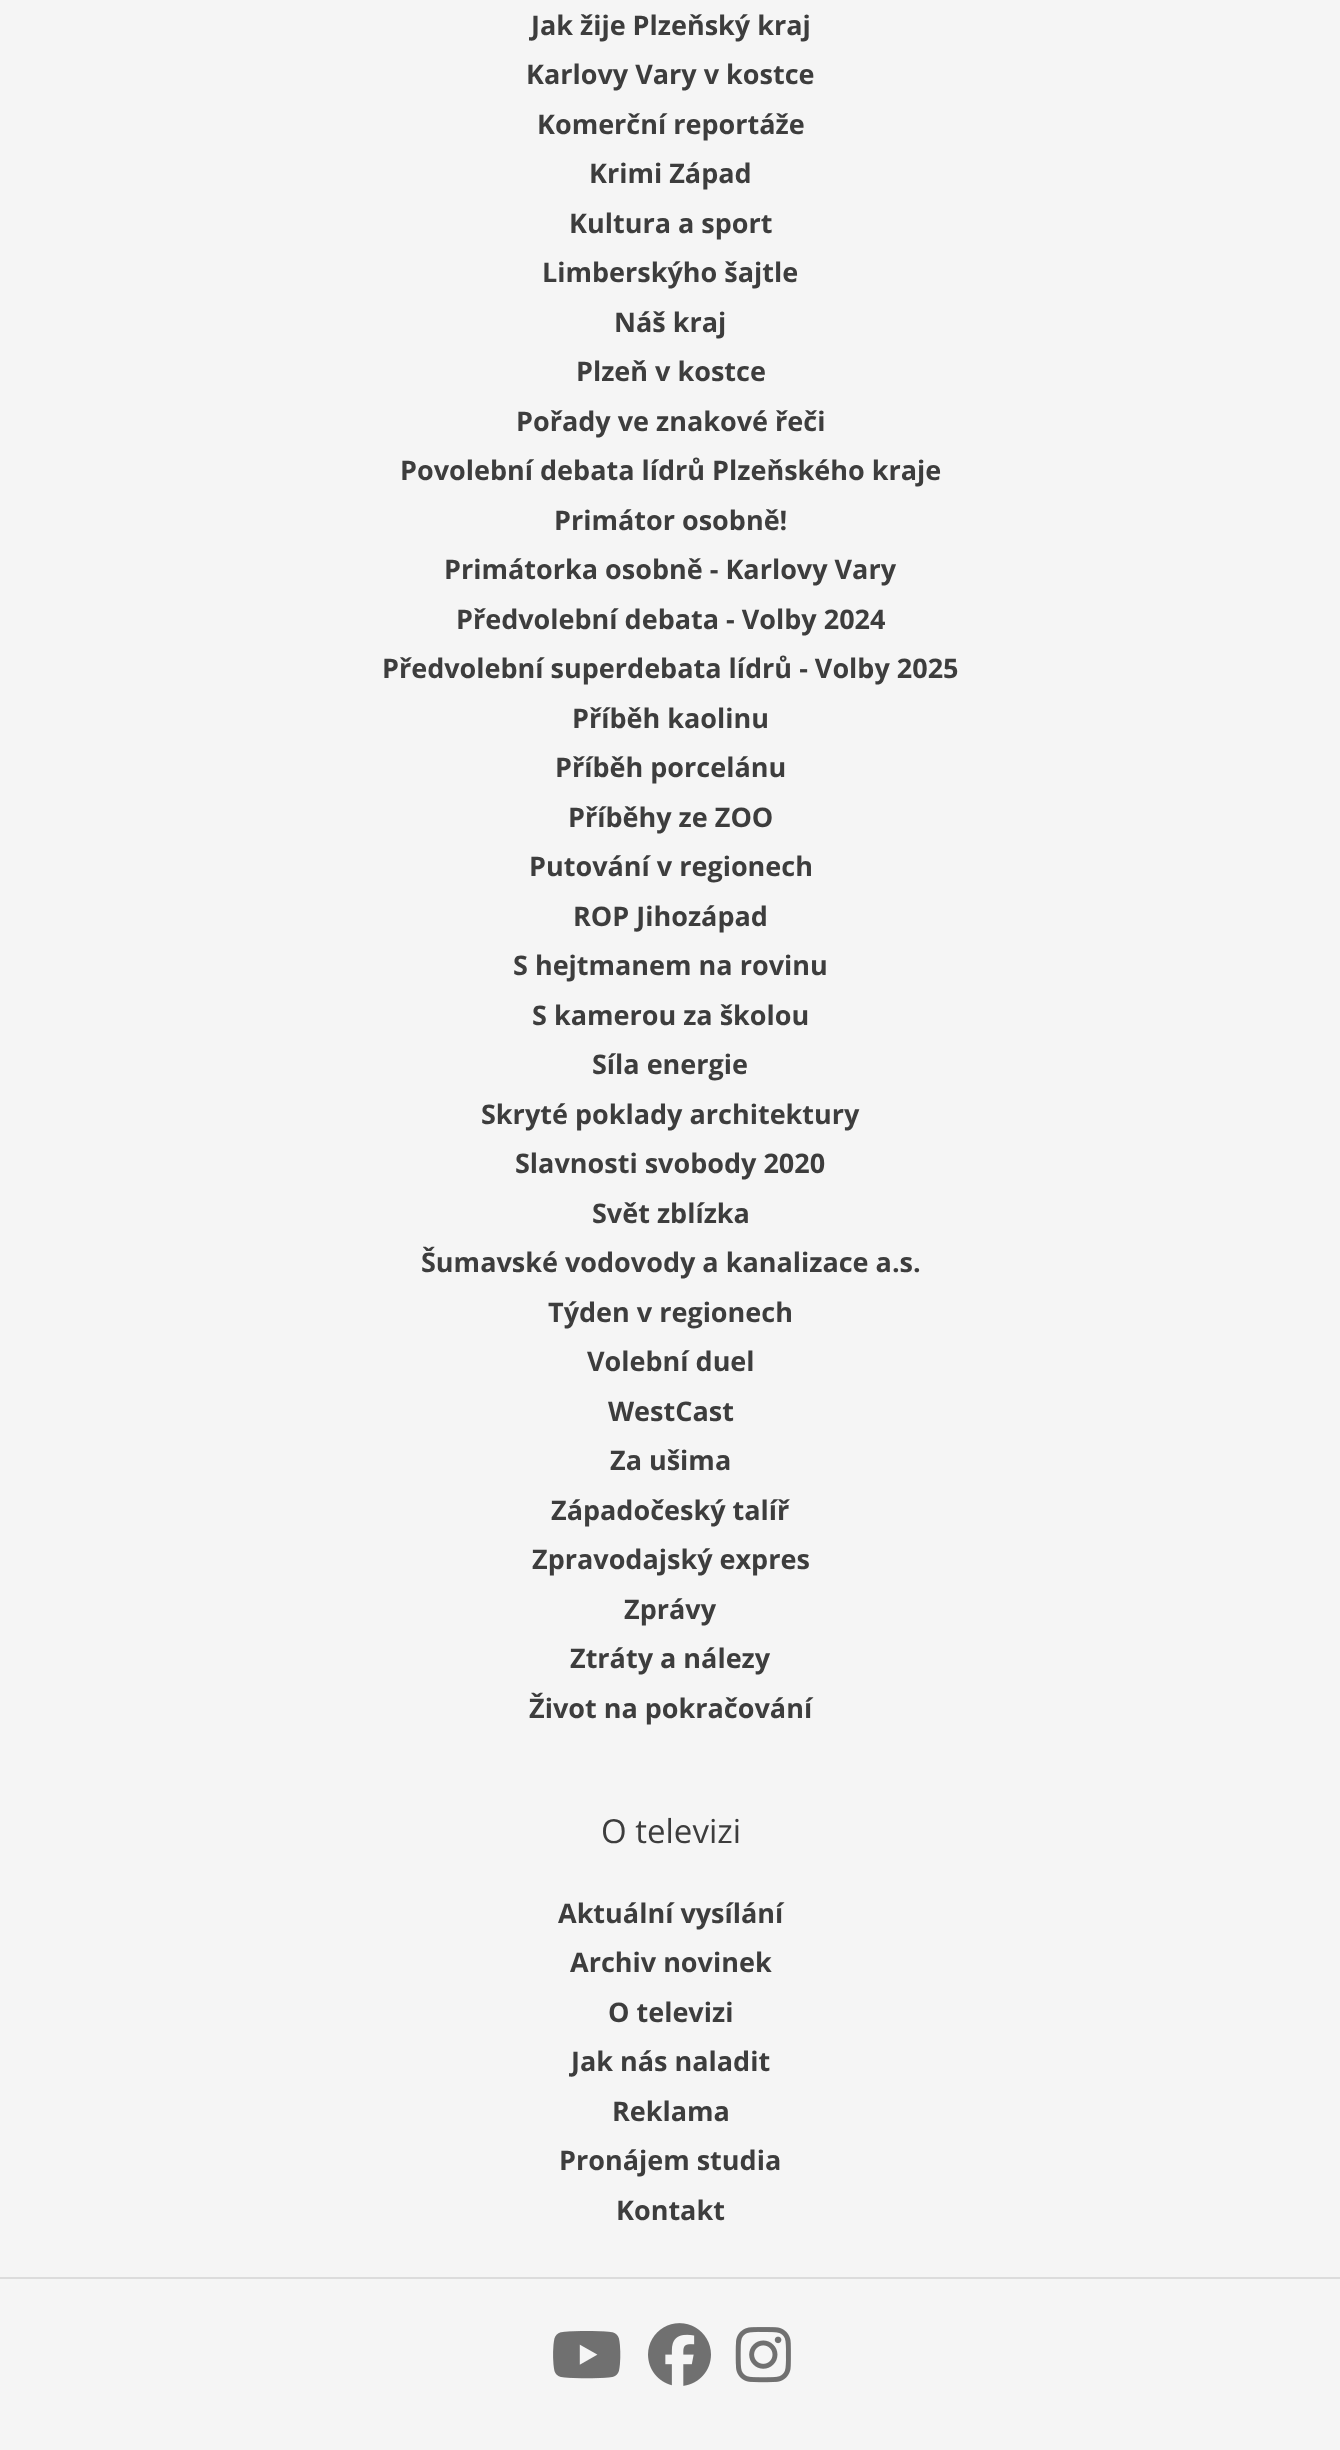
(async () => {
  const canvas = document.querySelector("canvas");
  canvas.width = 1340;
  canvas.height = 2450;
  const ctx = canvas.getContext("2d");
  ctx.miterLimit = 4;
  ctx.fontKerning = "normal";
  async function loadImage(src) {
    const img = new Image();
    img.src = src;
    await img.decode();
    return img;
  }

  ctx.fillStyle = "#f5f5f5";
  ctx.fillRect(0, 0, 1340, 2450);
  ctx.fillStyle = "#dcdcdc";
  ctx.fillRect(0, 2277, 1340, 2);
  ctx.drawImage(await loadImage("img/1.png"), 553, 2331, 68, 48);
  ctx.drawImage(await loadImage("img/2.png"), 648, 2323, 63, 63);
  ctx.drawImage(await loadImage("img/3.png"), 735, 2327, 56, 56);
  ctx.font = "bold 27px Open Sans";
  ctx.fillStyle = "#3d3d3d";
  for (const [text, x, y] of [
    ["Jak žije Plzeňský kraj", 531, 35],
    ["Karlovy Vary v kostce", 526, 84],
    ["Komerční reportáže", 537, 134],
    ["Krimi Západ", 589, 183],
    ["Kultura a sport", 569, 233],
    ["Limberskýho šajtle", 542, 282],
    ["Náš kraj", 614, 332],
    ["Plzeň v kostce", 576, 381],
    ["Pořady ve znakové řeči", 516, 431],
    ["Povolební debata lídrů Plzeňského kraje", 400, 480],
    ["Primátor osobně!", 554, 530],
    ["Primátorka osobně - Karlovy Vary", 444, 579],
    ["Předvolební debata - Volby 2024", 456, 629],
    ["Předvolební superdebata lídrů - Volby 2025", 382, 678],
    ["Příběh kaolinu", 572, 728],
    ["Příběh porcelánu", 555, 777],
    ["Příběhy ze ZOO", 568, 827],
    ["Putování v regionech", 529, 876],
    ["ROP Jihozápad", 573, 926],
    ["S hejtmanem na rovinu", 513, 975],
    ["S kamerou za školou", 532, 1025],
    ["Síla energie", 592, 1074],
    ["Skryté poklady architektury", 481, 1124],
    ["Slavnosti svobody 2020", 515, 1173],
    ["Svět zblízka", 592, 1223],
    ["Šumavské vodovody a kanalizace a.s.", 421, 1272],
    ["Týden v regionech", 548, 1322],
    ["Volební duel", 587, 1371],
    ["WestCast", 608, 1421],
    ["Za ušima", 610, 1470],
    ["Západočeský talíř", 551, 1520],
    ["Zpravodajský expres", 532, 1569],
    ["Zprávy", 624, 1619],
    ["Ztráty a nálezy", 570, 1668],
    ["Život na pokračování", 529, 1718],
  ]) {
    ctx.fillText(text, x, y);
  }
  ctx.font = "33px Open Sans";
  ctx.fillText("O televizi", 601, 1843);
  ctx.font = "bold 27px Open Sans";
  for (const [text, x, y] of [
    ["Aktuální vysílání", 558, 1923],
    ["Archiv novinek", 570, 1972],
    ["O televizi", 608, 2022],
    ["Jak nás naladit", 571, 2071],
    ["Reklama", 612, 2121],
    ["Pronájem studia", 559, 2170],
    ["Kontakt", 616, 2220],
  ]) {
    ctx.fillText(text, x, y);
  }
})();
